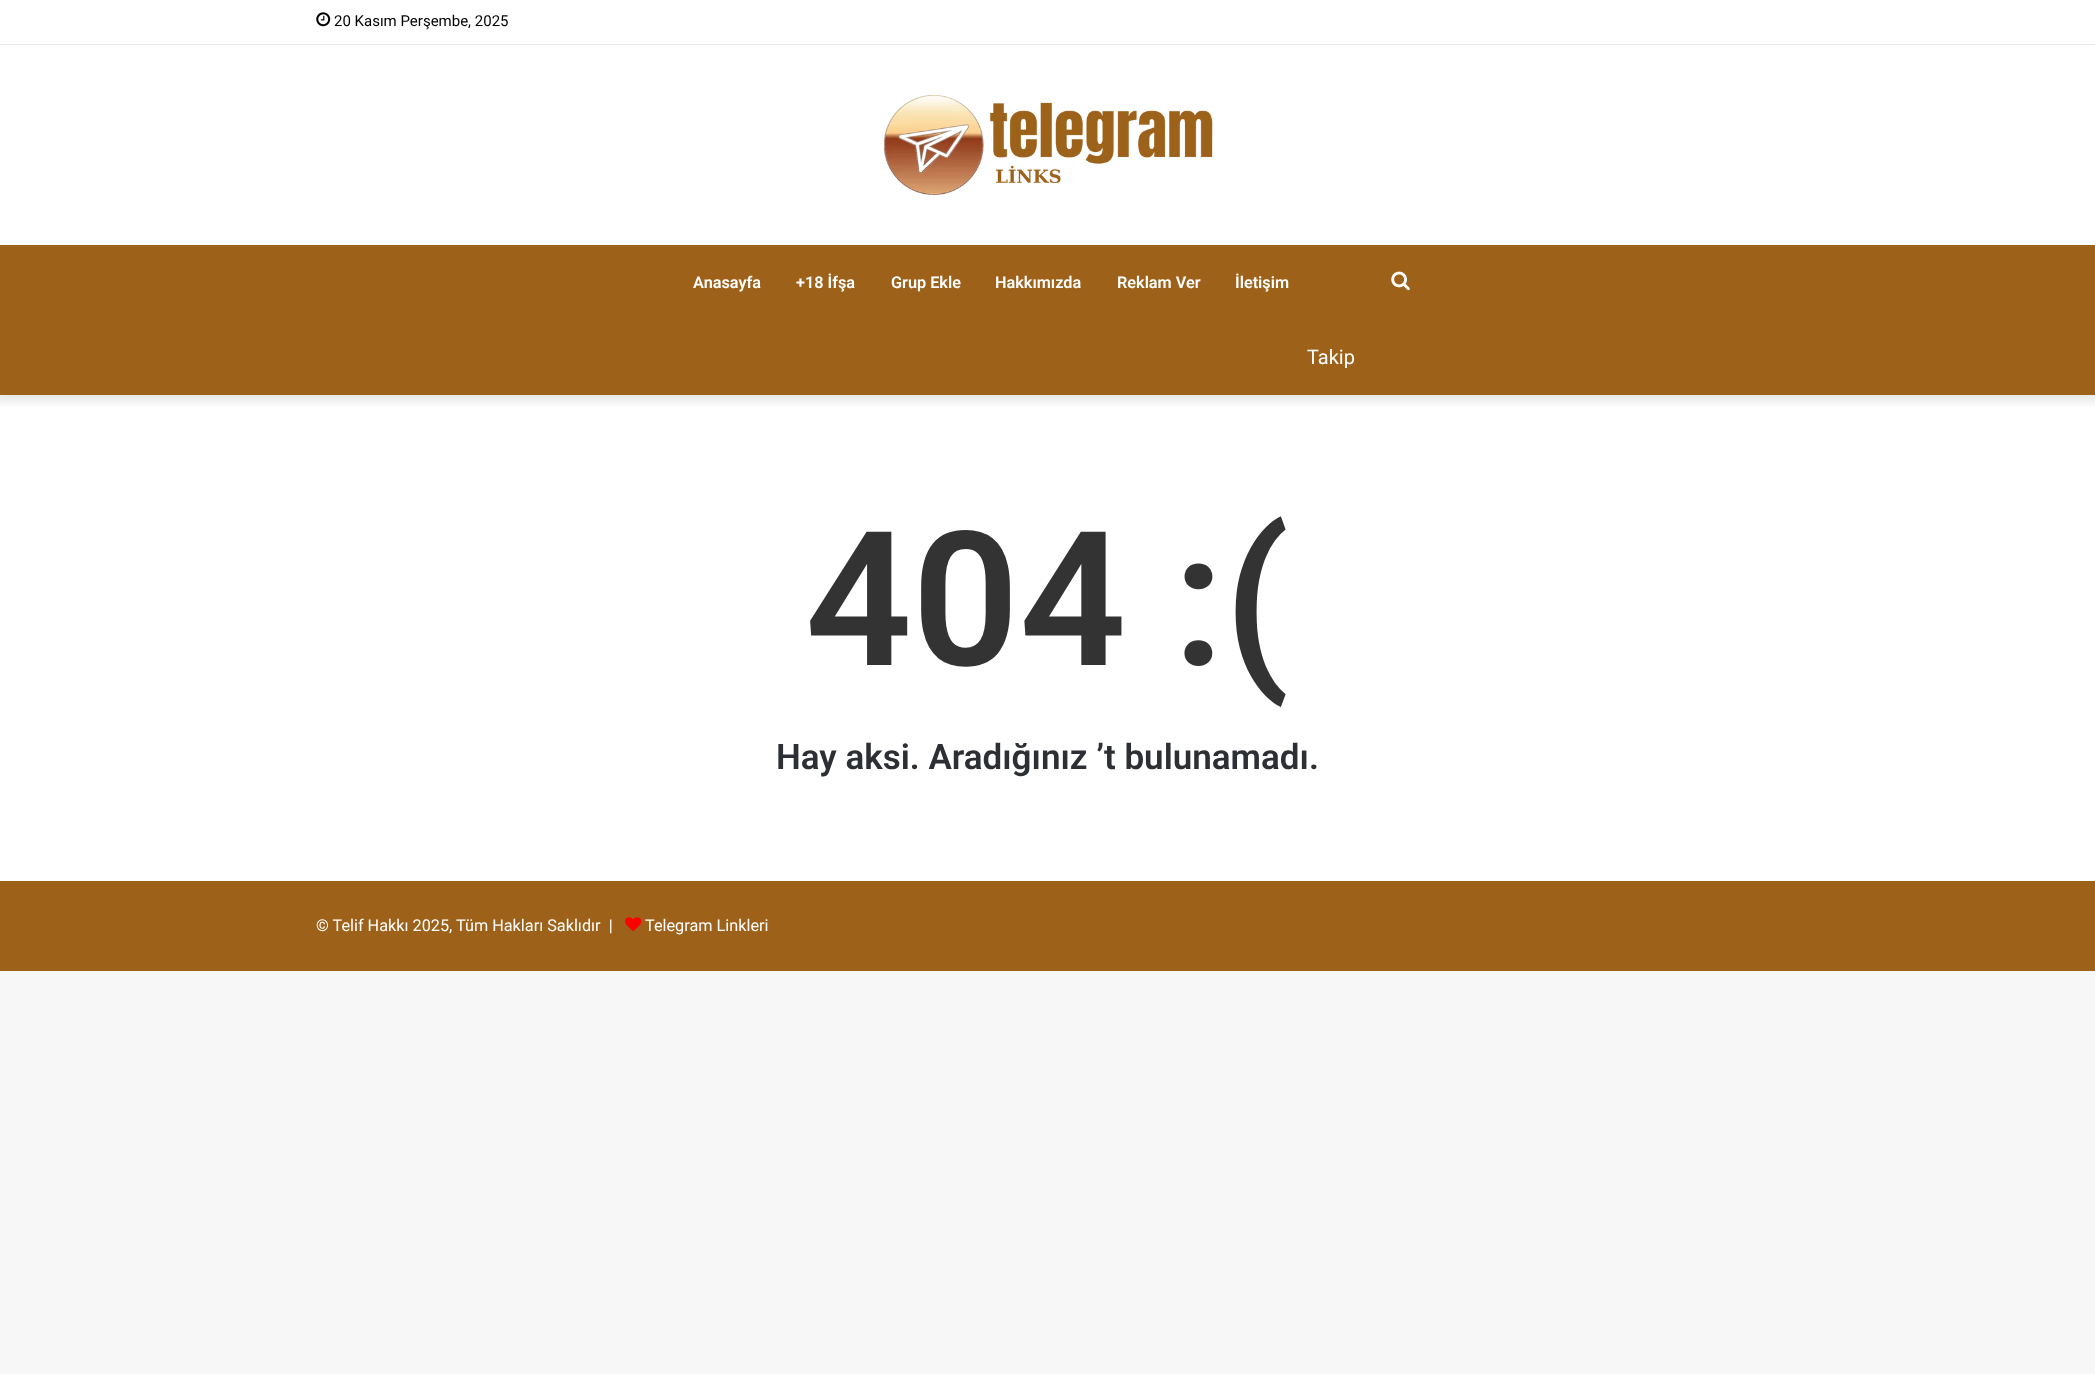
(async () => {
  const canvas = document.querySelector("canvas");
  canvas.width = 2095;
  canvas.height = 1374;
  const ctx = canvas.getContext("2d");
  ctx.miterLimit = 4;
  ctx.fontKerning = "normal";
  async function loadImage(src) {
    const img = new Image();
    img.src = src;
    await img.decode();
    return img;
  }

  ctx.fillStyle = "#f7f7f7";
  ctx.fillRect(0, 0, 2095, 1374);
  ctx.fillStyle = "#ffffff";
  ctx.fillRect(0, 0, 2095, 881);
  ctx.save();
  ctx.beginPath();
  ctx.rect(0, 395, 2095, 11);
  ctx.clip();
  ctx.fillStyle = "rgba(0, 0, 0, 0.1)";
  ctx.filter = "blur(6px)";
  ctx.beginPath();
  ctx.rect(-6, -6, 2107, 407);
  ctx.fill();
  ctx.filter = "none";
  ctx.restore();
  ctx.fillStyle = "#e6e6e6";
  ctx.fillRect(0, 44, 2095, 1);
  ctx.drawImage(await loadImage("img/1.png"), 316, 12, 15, 15);
  ctx.drawImage(await loadImage("img/2.png"), 883, 95, 330, 100);
  ctx.fillStyle = "#9d611a";
  ctx.fillRect(0, 245, 2095, 150);
  ctx.drawImage(await loadImage("img/3.png"), 1391, 271, 19, 20);
  ctx.fillRect(0, 881, 2095, 90);
  ctx.drawImage(await loadImage("img/4.png"), 625, 917, 17, 15);
  ctx.font = "15px Roboto";
  ctx.fillStyle = "#000000";
  ctx.fillText("20 Kasım Perşembe, 2025", 334, 26);
  ctx.font = "600 16.25px Roboto";
  ctx.fillStyle = "#ffffff";
  for (const [text, x, y] of [
    ["Anasayfa", 693, 288],
    ["+18 İfşa", 796, 288],
    ["Grup Ekle", 891, 288],
    ["Hakkımızda", 995, 288],
    ["Reklam Ver", 1117, 288],
    ["İletişim", 1235, 288],
  ]) {
    ctx.fillText(text, x, y);
  }
  ctx.font = "20px Roboto";
  ctx.fillText("Takip", 1307, 364);
  ctx.font = "600 187.5px Roboto";
  ctx.fillStyle = "#333333";
  ctx.fillText("404 :(", 805, 665);
  ctx.font = "600 35px Roboto";
  ctx.fillStyle = "#2c2f34";
  ctx.fillText("Hay aksi. Aradığınız ’t bulunamadı.", 776, 769);
  ctx.font = "16.25px Roboto";
  ctx.fillStyle = "#ffffff";
  ctx.fillText("© Telif Hakkı 2025, Tüm Hakları Saklıdır  |", 316, 931);
  ctx.fillText("Telegram Linkleri", 645, 931);
})();
